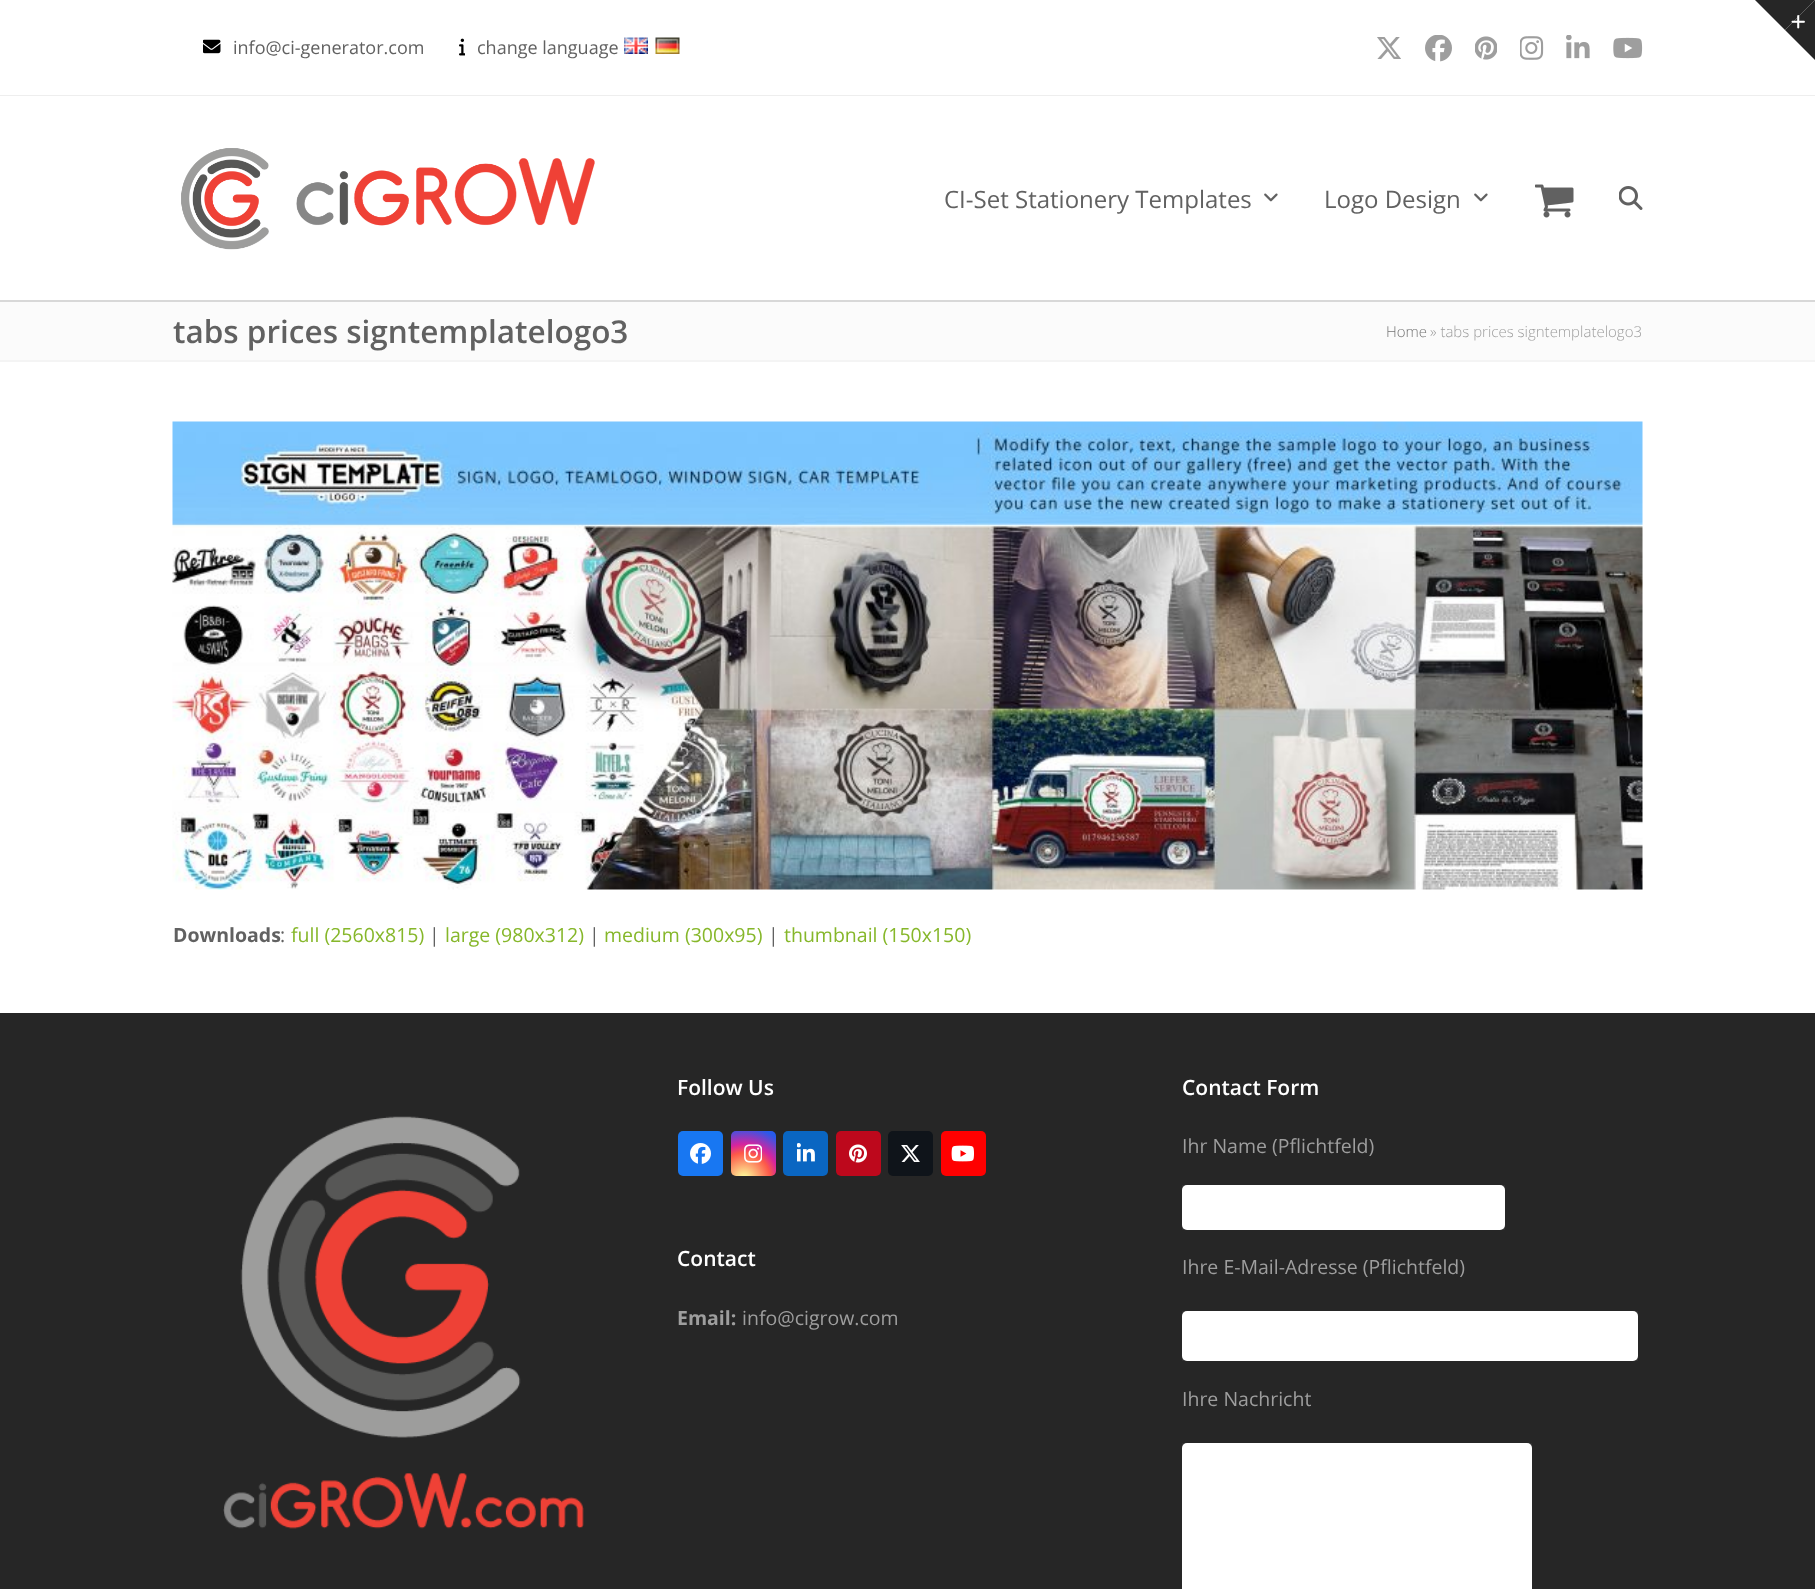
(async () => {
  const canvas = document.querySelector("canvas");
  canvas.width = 1815;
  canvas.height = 1589;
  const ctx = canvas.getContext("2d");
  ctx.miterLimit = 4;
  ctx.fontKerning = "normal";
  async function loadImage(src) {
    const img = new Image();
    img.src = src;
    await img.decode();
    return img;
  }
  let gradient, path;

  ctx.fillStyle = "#ffffff";
  ctx.fillRect(0, 0, 1815, 1589);
  ctx.fillStyle = "#262626";
  path = new Path2D("M1755 0H1815L1785 30Z");
  ctx.fill(path);
  path = new Path2D("M1815 0V60L1785 30Z");
  ctx.fill(path);
  ctx.drawImage(await loadImage("img/1.png"), 1791, 15, 14, 14);
  ctx.fillStyle = "#eeeeee";
  ctx.fillRect(0, 95, 1815, 1);
  ctx.drawImage(await loadImage("img/2.png"), 203, 39, 18, 15);
  ctx.drawImage(await loadImage("img/3.png"), 459, 38, 6, 18);
  ctx.drawImage(await loadImage("img/4.png"), 624, 37, 24, 17);
  ctx.drawImage(await loadImage("img/5.png"), 655, 37, 25, 17);
  ctx.drawImage(await loadImage("img/6.png"), 1377, 37, 24, 22);
  ctx.drawImage(await loadImage("img/7.png"), 1425, 35, 27, 27);
  ctx.drawImage(await loadImage("img/8.png"), 1475, 36, 22, 24);
  ctx.drawImage(await loadImage("img/9.png"), 1520, 36, 24, 24);
  ctx.drawImage(await loadImage("img/10.png"), 1566, 35, 24, 24);
  ctx.drawImage(await loadImage("img/11.png"), 1613, 37, 30, 22);
  ctx.drawImage(await loadImage("img/12.png"), 181, 148, 414, 102);
  ctx.drawImage(await loadImage("img/13.png"), 1264, 193, 14, 9);
  ctx.drawImage(await loadImage("img/13.png"), 1474, 193, 14, 9);
  ctx.drawImage(await loadImage("img/14.png"), 1535, 184, 39, 34);
  ctx.drawImage(await loadImage("img/15.png"), 1619, 186, 24, 24);
  for (const [x, y, w, h, color] of [
    [0, 302, 1815, 58, "#fbfbfb"],
    [0, 300, 1815, 2, "#d8d8d8"],
    [0, 360, 1815, 2, "#f4f4f4"],
  ]) {
    ctx.fillStyle = color;
    ctx.fillRect(x, y, w, h);
  }
  ctx.drawImage(await loadImage("img/16.png"), 172, 421, 1471, 469);
  ctx.fillStyle = "#262626";
  ctx.fillRect(0, 1013, 1815, 576);
  ctx.drawImage(await loadImage("img/17.png"), 223, 1116, 361, 413);
  ctx.fillStyle = "#1877f2";
  ctx.beginPath();
  ctx.roundRect(678, 1131, 45, 45, 5);
  ctx.fill();
  ctx.drawImage(await loadImage("img/18.png"), 690, 1143, 21, 21);
  gradient = ctx.createRadialGradient(744, 1179, 0, 744, 1179, 58);
  gradient.addColorStop(0, "#fdf497");
  gradient.addColorStop(0.05, "#fdf497");
  gradient.addColorStop(0.45, "#fd5949");
  gradient.addColorStop(0.6, "#d6249f");
  gradient.addColorStop(0.9, "#285aeb");
  ctx.fillStyle = gradient;
  ctx.beginPath();
  ctx.roundRect(731, 1131, 45, 45, 5);
  ctx.fill();
  ctx.drawImage(await loadImage("img/19.png"), 744, 1144, 18, 19);
  ctx.fillStyle = "#0a66c2";
  ctx.beginPath();
  ctx.roundRect(783, 1131, 45, 45, 5);
  ctx.fill();
  ctx.drawImage(await loadImage("img/20.png"), 797, 1143, 18, 19);
  ctx.fillStyle = "#bd081c";
  ctx.beginPath();
  ctx.roundRect(836, 1131, 45, 45, 5);
  ctx.fill();
  ctx.drawImage(await loadImage("img/21.png"), 849, 1144, 18, 19);
  ctx.fillStyle = "#0f141a";
  ctx.beginPath();
  ctx.roundRect(888, 1131, 45, 45, 5);
  ctx.fill();
  ctx.drawImage(await loadImage("img/22.png"), 901, 1145, 19, 17);
  ctx.fillStyle = "#ff0000";
  ctx.beginPath();
  ctx.roundRect(941, 1131, 45, 45, 5);
  ctx.fill();
  ctx.drawImage(await loadImage("img/23.png"), 951, 1145, 23, 17);
  ctx.fillStyle = "#ffffff";
  ctx.beginPath();
  ctx.roundRect(1182, 1185, 323, 45, 5);
  ctx.fill();
  ctx.strokeStyle = "rgba(255, 255, 255, 0.06)";
  ctx.lineWidth = 2;
  ctx.strokeRect(1183, 1186, 321, 43);
  ctx.beginPath();
  ctx.roundRect(1182, 1311, 456, 50, 5);
  ctx.fill();
  ctx.strokeRect(1183, 1312, 454, 48);
  ctx.beginPath();
  ctx.roundRect(1182, 1443, 350, 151, 5);
  ctx.fill();
  ctx.strokeRect(1183, 1444, 348, 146);
  ctx.font = "18px Open Sans";
  ctx.fillStyle = "#616161";
  ctx.fillText("info@ci-generator.com", 233, 54);
  ctx.fillText("change language", 477, 54);
  ctx.font = "24px Open Sans";
  ctx.fillText("CI-Set Stationery Templates", 944, 208);
  ctx.fillText("Logo Design", 1324, 208);
  ctx.font = "600 31.5px Open Sans";
  ctx.fillText("tabs prices signtemplatelogo3", 173, 343);
  ctx.font = "300 15px Open Sans";
  ctx.fillStyle = "#757575";
  ctx.fillText("Home", 1386, 337);
  ctx.fillStyle = "#9e9e9e";
  ctx.fillText("» tabs prices signtemplatelogo3", 1430, 337);
  ctx.font = "bold 19.5px Open Sans";
  ctx.fillStyle = "#616161";
  ctx.fillText("Downloads", 173, 942);
  ctx.font = "19.5px Open Sans";
  ctx.fillText(":", 280, 942);
  ctx.fillStyle = "#86b72a";
  ctx.fillText("full (2560x815)", 291, 942);
  ctx.fillStyle = "#616161";
  ctx.fillText("|", 429, 942);
  ctx.fillStyle = "#86b72a";
  ctx.fillText("large (980x312)", 445, 942);
  ctx.fillStyle = "#616161";
  ctx.fillText("|", 589, 942);
  ctx.fillStyle = "#86b72a";
  ctx.fillText("medium (300x95)", 604, 942);
  ctx.fillStyle = "#616161";
  ctx.fillText("|", 768, 942);
  ctx.fillStyle = "#86b72a";
  ctx.fillText("thumbnail (150x150)", 784, 942);
  ctx.font = "600 21px Open Sans";
  ctx.fillStyle = "#ffffff";
  ctx.fillText("Follow Us", 677, 1095);
  ctx.fillText("Contact", 677, 1266);
  ctx.font = "bold 19.5px Open Sans";
  ctx.fillStyle = "#9e9e9e";
  ctx.fillText("Email:", 677, 1325);
  ctx.font = "19.5px Open Sans";
  ctx.fillText("info@cigrow.com", 742, 1325);
  ctx.font = "600 21px Open Sans";
  ctx.fillStyle = "#ffffff";
  ctx.fillText("Contact Form", 1182, 1095);
  ctx.font = "19.5px Open Sans";
  ctx.fillStyle = "#9e9e9e";
  for (const [text, x, y] of [
    ["Ihr Name (Pflichtfeld)", 1182, 1153],
    ["Ihre E-Mail-Adresse (Pflichtfeld)", 1182, 1274],
    ["Ihre Nachricht", 1182, 1406],
  ]) {
    ctx.fillText(text, x, y);
  }
})();
